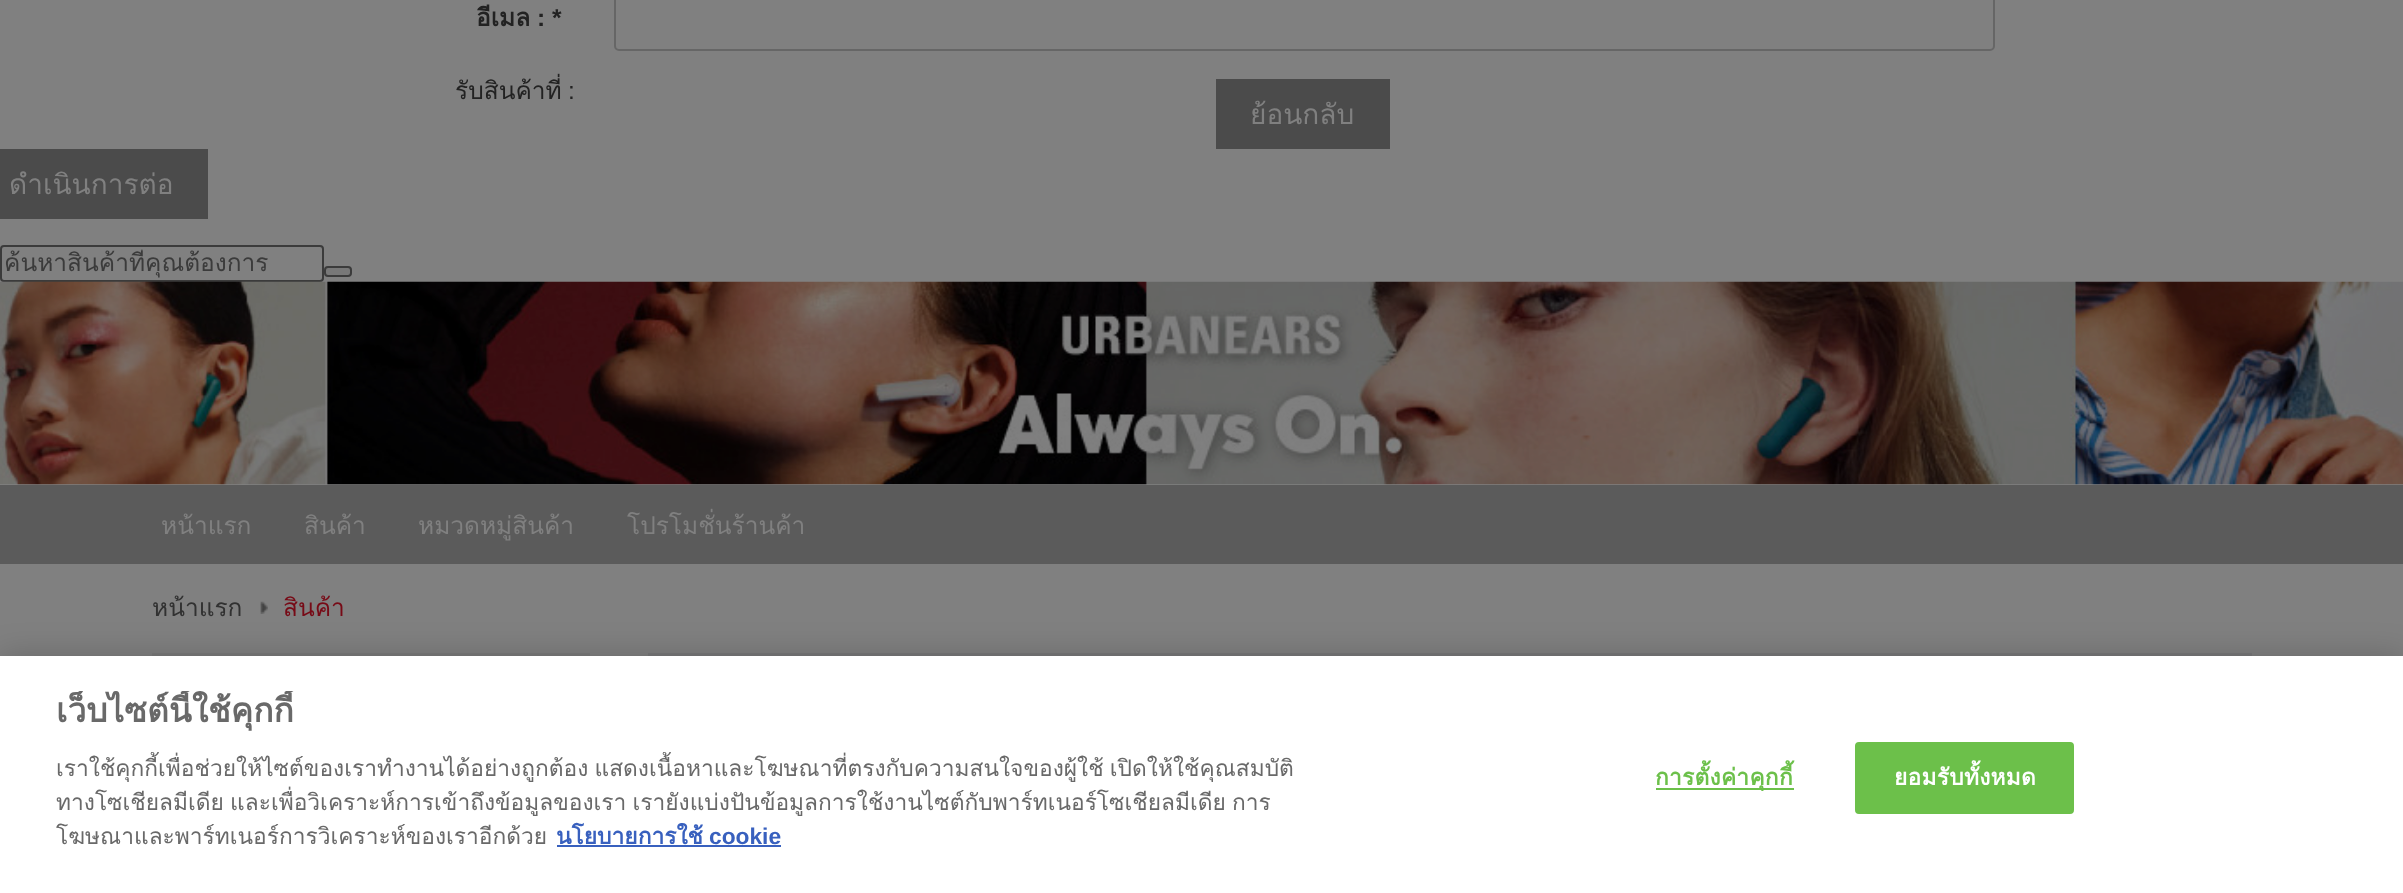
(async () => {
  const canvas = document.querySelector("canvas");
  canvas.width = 2403;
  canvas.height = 893;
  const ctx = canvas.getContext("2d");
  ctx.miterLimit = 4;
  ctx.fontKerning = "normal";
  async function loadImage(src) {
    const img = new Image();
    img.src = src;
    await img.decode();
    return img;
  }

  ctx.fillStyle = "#808080";
  ctx.fillRect(0, 0, 2403, 893);
  ctx.beginPath();
  ctx.roundRect(615, -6, 1379, 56, 4);
  ctx.strokeStyle = "#666666";
  ctx.lineWidth = 2;
  ctx.stroke();
  ctx.fillStyle = "#4b4b4b";
  ctx.fillRect(1216, 79, 174, 70);
  ctx.fillRect(0, 149, 208, 70);
  ctx.beginPath();
  ctx.roundRect(1, 246, 322, 35, 3);
  ctx.strokeStyle = "#3b3b3b";
  ctx.stroke();
  ctx.fillStyle = "#787878";
  ctx.beginPath();
  ctx.roundRect(325, 267, 26, 9, 3);
  ctx.fill();
  ctx.stroke();
  ctx.drawImage(await loadImage("img/1.png"), 0, 281, 2403, 204);
  ctx.fillStyle = "#5b5b5b";
  ctx.fillRect(0, 485, 2403, 79);
  ctx.drawImage(await loadImage("img/2.png"), 260, 601, 8, 13);
  ctx.fillStyle = "#7a7a7a";
  ctx.fillRect(152, 653, 438, 3);
  ctx.fillStyle = "#787879";
  ctx.fillRect(648, 653, 1604, 3);
  ctx.fillStyle = "rgba(0, 0, 0, 0.2)";
  ctx.filter = "blur(16px)";
  ctx.beginPath();
  ctx.rect(0, 656, 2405, 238);
  ctx.fill();
  ctx.filter = "none";
  for (const [x, y, w, h, color] of [
    [0, 656, 2403, 237, "#ffffff"],
    [557, 845, 224, 2, "#3860be"],
    [1656, 788, 138, 2, "#6cc04a"],
  ]) {
    ctx.fillStyle = color;
    ctx.fillRect(x, y, w, h);
  }
  ctx.beginPath();
  ctx.roundRect(1856, 743, 217, 70, 3);
  ctx.fill();
  ctx.strokeStyle = "#6cc04a";
  ctx.stroke();
  ctx.font = "bold 24.5px Loma";
  ctx.fillStyle = "#222222";
  ctx.fillText("อีเมล", 476, 26);
  ctx.font = "bold 24.5px Liberation Sans";
  ctx.fillText(": *", 537, 26);
  ctx.font = "24.5px Loma";
  ctx.fillText("รับสินค้าที่", 455, 99);
  ctx.font = "24.5px Liberation Sans";
  ctx.fillText(":", 568, 99);
  ctx.font = "28px Loma";
  ctx.fillStyle = "#808080";
  ctx.fillText("ย้อนกลับ", 1250, 124);
  ctx.fillText("ดำเนินการต่อ", 9, 194);
  ctx.save();
  ctx.beginPath();
  ctx.roundRect(4, 249, 316, 29, 2);
  ctx.clip();
  ctx.font = "24.5px Loma";
  ctx.fillStyle = "#3b3b3b";
  ctx.fillText("ค้นหาสินค้าที่คุณต้องการ", 4, 271);
  ctx.restore();
  ctx.font = "24.5px Loma";
  for (const [text, x, y] of [
    ["หน้าแรก", 161, 534],
    ["สินค้า", 304, 534],
    ["หมวดหมู่สินค้า", 418, 534],
    ["โปรโมชั่นร้านค้า", 627, 534],
  ]) {
    ctx.fillText(text, x, y);
  }
  ctx.fillStyle = "#313131";
  ctx.fillText("หน้าแรก", 152, 616);
  ctx.save();
  ctx.beginPath();
  ctx.rect(284, 564, 77, 75);
  ctx.clip();
  ctx.fillStyle = "#770a16";
  ctx.fillText("สินค้า", 283, 616);
  ctx.restore();
  ctx.save();
  ctx.beginPath();
  ctx.rect(56, 691, 1267, 186);
  ctx.clip();
  ctx.font = "bold 33.5px Loma";
  ctx.fillStyle = "#696969";
  ctx.fillText("เว็บไซต์นี้ใช้คุกกี้", 56, 722);
  ctx.restore();
  ctx.wordSpacing = "-1.5px";
  ctx.font = "22.75px Loma";
  ctx.fillStyle = "#696969";
  ctx.fillText("เราใช้คุกกี้เพื่อช่วยให้ไซต์ของเราทำงานได้อย่างถูกต้อง แสดงเนื้อหาและโฆษณาที่ตรงกับความสนใจของผู้ใช้ เปิดให้ใช้คุณสมบัติ", 56, 776);
  ctx.fillText("ทางโซเชียลมีเดีย และเพื่อวิเคราะห์การเข้าถึงข้อมูลของเรา เรายังแบ่งปันข้อมูลการใช้งานไซต์กับพาร์ทเนอร์โซเชียลมีเดีย การ", 56, 810);
  ctx.wordSpacing = "0px";
  ctx.fillText("โฆษณาและพาร์ทเนอร์การวิเคราะห์ของเราอีกด้วย", 56, 844);
  ctx.font = "bold 22.75px Loma";
  ctx.fillStyle = "#3860be";
  ctx.fillText("นโยบายการใช้", 556, 844);
  ctx.font = "bold 22.75px Liberation Sans";
  ctx.fillText("cookie", 709, 844);
  ctx.letterSpacing = "0.25px";
  ctx.font = "bold 22.75px Loma";
  ctx.fillStyle = "#6cc04a";
  ctx.fillText("การตั้งค่าคุกกี้", 1655, 785);
  ctx.fillStyle = "#ffffff";
  ctx.fillText("ยอมรับทั้งหมด", 1894, 785);
})();
